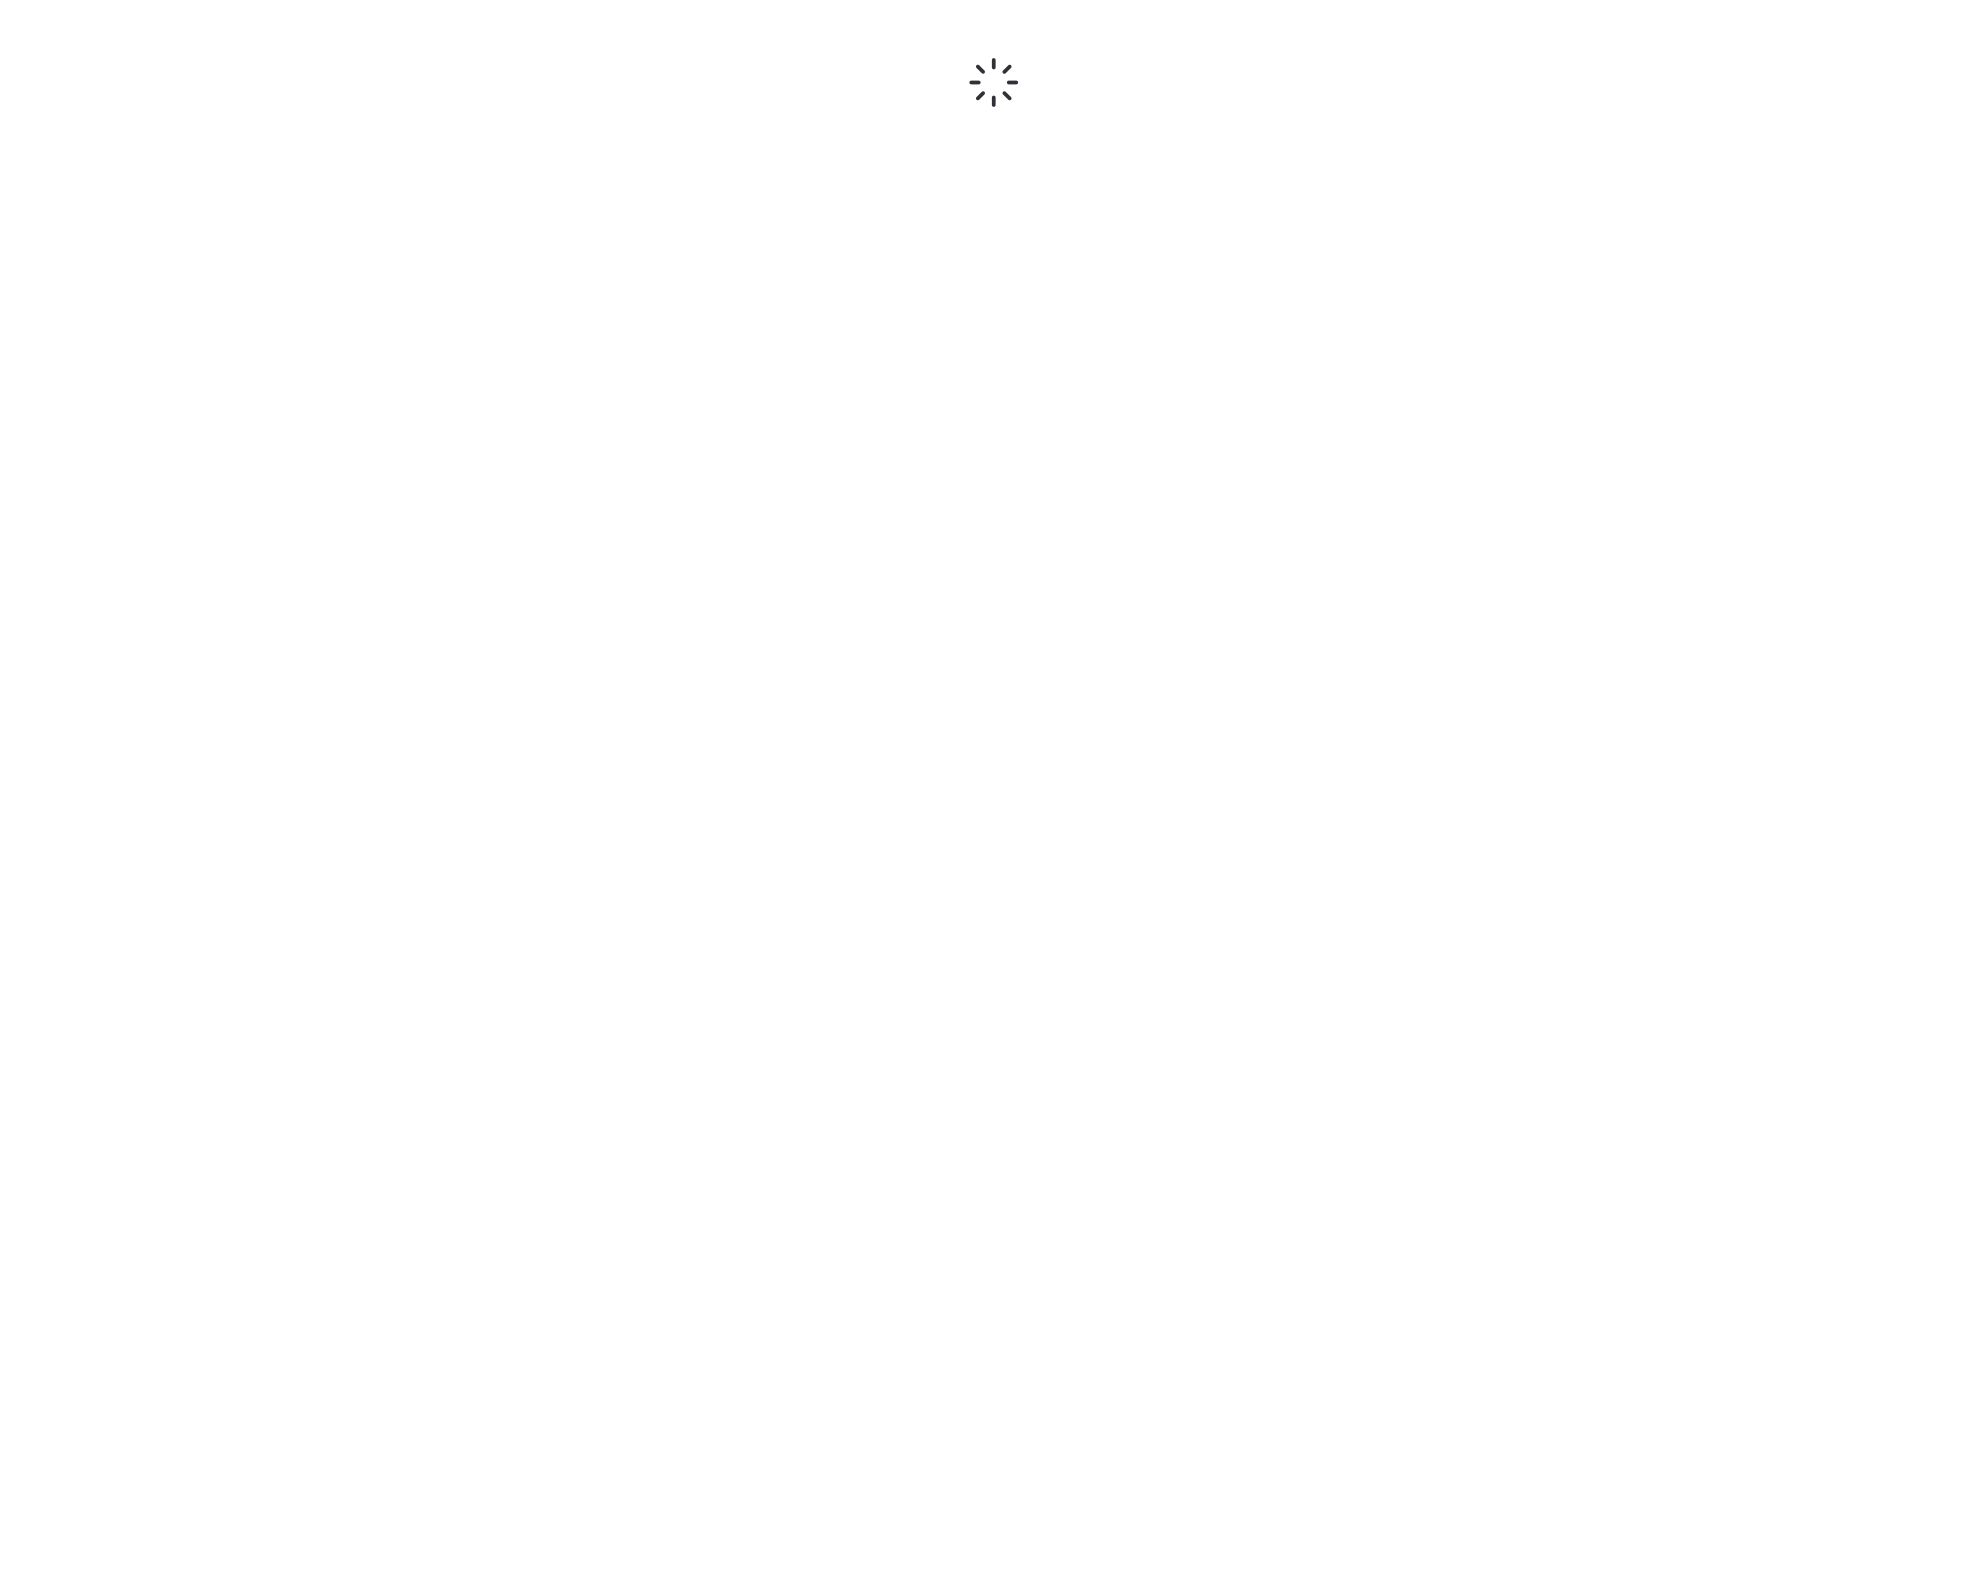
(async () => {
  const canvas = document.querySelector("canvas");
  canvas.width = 1987;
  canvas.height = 1593;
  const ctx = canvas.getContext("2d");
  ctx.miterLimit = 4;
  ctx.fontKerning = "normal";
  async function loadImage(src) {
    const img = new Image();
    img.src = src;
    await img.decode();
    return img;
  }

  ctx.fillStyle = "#ffffff";
  ctx.fillRect(0, 0, 1987, 1593);
  ctx.drawImage(await loadImage("img/1.png"), 969, 58, 50, 49);
})();
